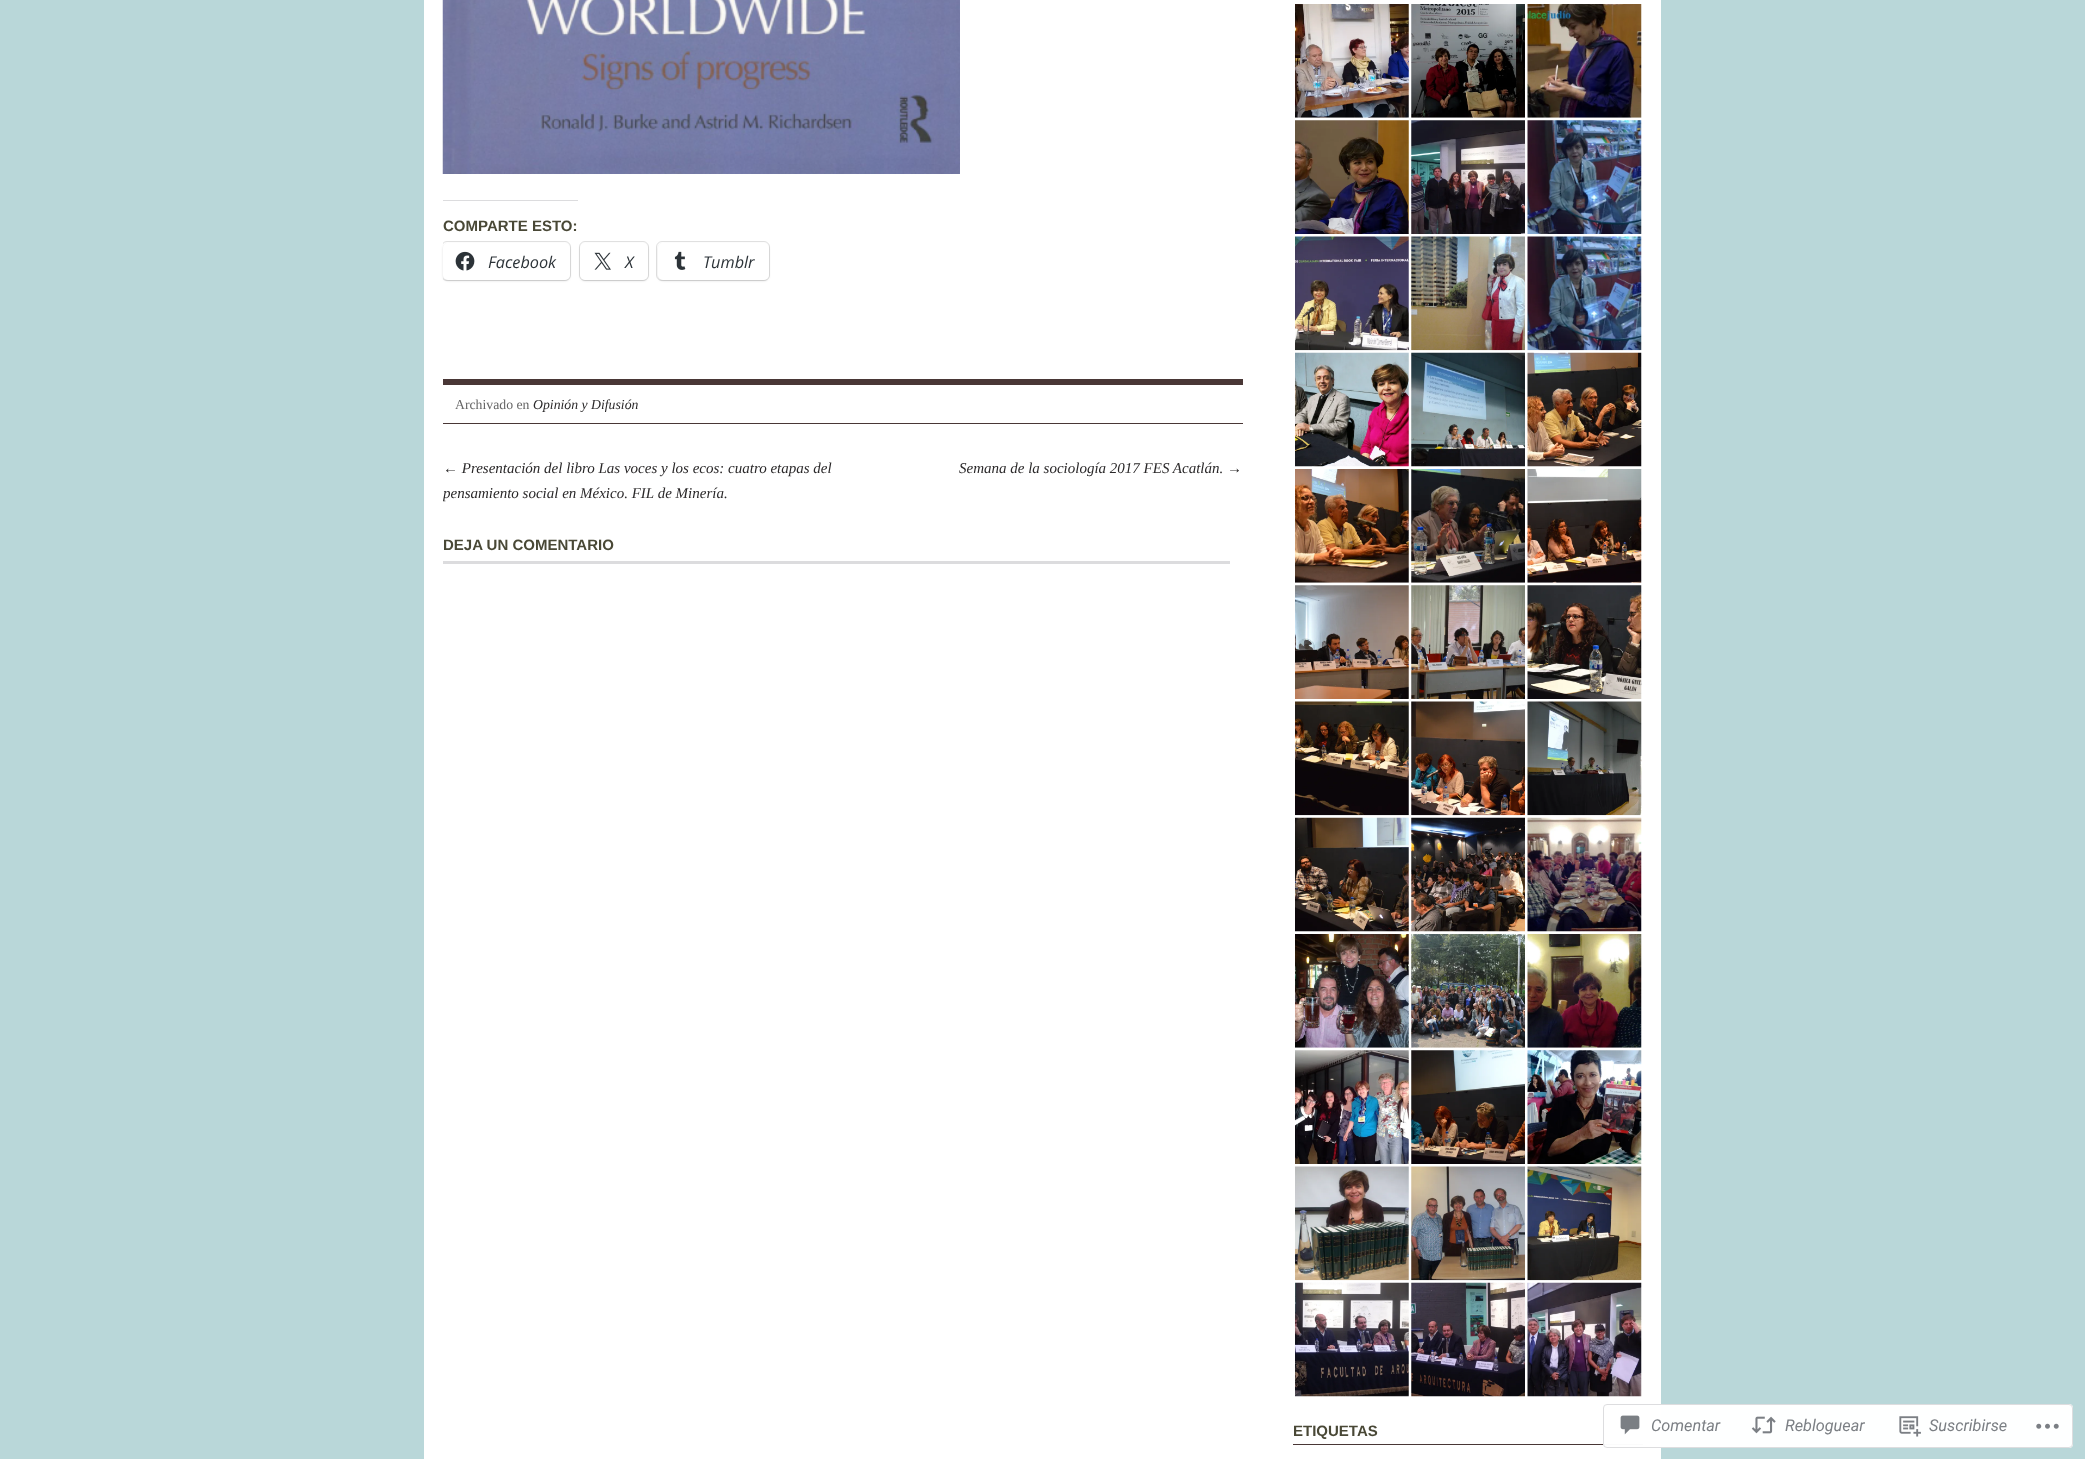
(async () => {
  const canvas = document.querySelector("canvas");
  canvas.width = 2085;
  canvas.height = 1459;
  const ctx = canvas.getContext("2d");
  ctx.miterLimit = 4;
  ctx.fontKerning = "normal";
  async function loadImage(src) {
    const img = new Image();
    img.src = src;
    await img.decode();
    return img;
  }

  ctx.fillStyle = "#b9d7d9";
  ctx.fillRect(0, 0, 2085, 1459);
  ctx.fillStyle = "#ffffff";
  ctx.fillRect(424, 0, 1237, 1459);
  ctx.drawImage(await loadImage("img/1.png"), 442, 0, 518, 174);
  ctx.fillStyle = "#dcdcde";
  ctx.fillRect(443, 200, 135, 1);
  ctx.save();
  ctx.beginPath();
  ctx.rect(443, 0, 812, 564);
  ctx.clip();
  ctx.beginPath();
  ctx.roundRect(441.5, 241.5, 129, 39, 5.5);
  ctx.strokeStyle = "#e0e0e0";
  ctx.stroke();
  ctx.restore();
  ctx.fillStyle = "rgba(0, 0, 0, 0.12)";
  ctx.filter = "blur(1px)";
  ctx.beginPath();
  ctx.roundRect(443, 244, 127, 37, 5);
  ctx.fill();
  ctx.filter = "none";
  ctx.fillStyle = "#ffffff";
  ctx.beginPath();
  ctx.roundRect(443, 243, 127, 37, 5);
  ctx.fill();
  ctx.drawImage(await loadImage("img/2.png"), 455, 251, 20, 20);
  ctx.beginPath();
  ctx.roundRect(579.5, 241.5, 69, 39, 5.5);
  ctx.strokeStyle = "#e0e0e0";
  ctx.stroke();
  ctx.fillStyle = "rgba(0, 0, 0, 0.12)";
  ctx.filter = "blur(1px)";
  ctx.beginPath();
  ctx.roundRect(580, 244, 68, 37, 5);
  ctx.fill();
  ctx.filter = "none";
  ctx.fillStyle = "#ffffff";
  ctx.beginPath();
  ctx.roundRect(580, 243, 68, 37, 5);
  ctx.fill();
  ctx.drawImage(await loadImage("img/3.png"), 594, 252, 17, 18);
  ctx.beginPath();
  ctx.roundRect(656.5, 241.5, 113, 39, 5.5);
  ctx.stroke();
  ctx.fillStyle = "rgba(0, 0, 0, 0.12)";
  ctx.filter = "blur(1px)";
  ctx.beginPath();
  ctx.roundRect(658, 244, 111, 37, 5);
  ctx.fill();
  ctx.filter = "none";
  ctx.fillStyle = "#ffffff";
  ctx.beginPath();
  ctx.roundRect(658, 243, 111, 37, 5);
  ctx.fill();
  ctx.drawImage(await loadImage("img/4.png"), 674, 251, 12, 19);
  for (const [x, y, w, h, color] of [
    [443, 379, 800, 6, "#493736"],
    [443, 423, 800, 1, "#493736"],
    [443, 561, 787, 3, "#dcdcde"],
  ]) {
    ctx.fillStyle = color;
    ctx.fillRect(x, y, w, h);
  }
  ctx.drawImage(await loadImage("img/5.png"), 1295, 4, 114, 114);
  ctx.drawImage(await loadImage("img/6.png"), 1411, 4, 114, 114);
  ctx.drawImage(await loadImage("img/7.png"), 1527, 4, 115, 114);
  ctx.drawImage(await loadImage("img/8.png"), 1295, 120, 114, 114);
  ctx.drawImage(await loadImage("img/9.png"), 1411, 120, 114, 114);
  ctx.drawImage(await loadImage("img/10.png"), 1527, 120, 115, 114);
  ctx.drawImage(await loadImage("img/11.png"), 1295, 236, 114, 115);
  ctx.drawImage(await loadImage("img/12.png"), 1411, 236, 114, 115);
  ctx.drawImage(await loadImage("img/13.png"), 1527, 236, 115, 115);
  ctx.drawImage(await loadImage("img/14.png"), 1295, 352, 114, 115);
  ctx.drawImage(await loadImage("img/15.png"), 1411, 352, 114, 115);
  ctx.drawImage(await loadImage("img/16.png"), 1527, 352, 115, 115);
  ctx.drawImage(await loadImage("img/17.png"), 1295, 469, 114, 114);
  ctx.drawImage(await loadImage("img/18.png"), 1411, 469, 114, 114);
  ctx.drawImage(await loadImage("img/19.png"), 1527, 469, 115, 114);
  ctx.drawImage(await loadImage("img/20.png"), 1295, 585, 114, 114);
  ctx.drawImage(await loadImage("img/21.png"), 1411, 585, 114, 114);
  ctx.drawImage(await loadImage("img/22.png"), 1527, 585, 115, 114);
  ctx.drawImage(await loadImage("img/23.png"), 1295, 701, 114, 115);
  ctx.drawImage(await loadImage("img/24.png"), 1411, 701, 114, 115);
  ctx.drawImage(await loadImage("img/25.png"), 1527, 701, 115, 115);
  ctx.drawImage(await loadImage("img/26.png"), 1295, 817, 114, 115);
  ctx.drawImage(await loadImage("img/27.png"), 1411, 817, 114, 115);
  ctx.drawImage(await loadImage("img/28.png"), 1527, 817, 115, 115);
  ctx.drawImage(await loadImage("img/29.png"), 1295, 934, 114, 114);
  ctx.drawImage(await loadImage("img/30.png"), 1411, 934, 114, 114);
  ctx.drawImage(await loadImage("img/31.png"), 1527, 934, 115, 114);
  ctx.drawImage(await loadImage("img/32.png"), 1295, 1050, 114, 114);
  ctx.drawImage(await loadImage("img/33.png"), 1411, 1050, 114, 114);
  ctx.drawImage(await loadImage("img/34.png"), 1527, 1050, 115, 114);
  ctx.drawImage(await loadImage("img/35.png"), 1295, 1166, 114, 115);
  ctx.drawImage(await loadImage("img/36.png"), 1411, 1166, 114, 115);
  ctx.drawImage(await loadImage("img/37.png"), 1527, 1166, 115, 115);
  ctx.drawImage(await loadImage("img/38.png"), 1295, 1282, 114, 115);
  ctx.drawImage(await loadImage("img/39.png"), 1411, 1282, 114, 115);
  ctx.drawImage(await loadImage("img/40.png"), 1527, 1282, 115, 115);
  ctx.fillStyle = "#493736";
  ctx.fillRect(1293, 1444, 350, 1);
  ctx.fillStyle = "rgba(255, 255, 255, 0.98)";
  ctx.beginPath();
  ctx.roundRect(1603, 1404, 470, 44, 4);
  ctx.fill();
  ctx.beginPath();
  ctx.roundRect(1603.5, 1404.5, 469, 43, 3.5);
  ctx.strokeStyle = "rgba(220, 220, 222, 0.98)";
  ctx.stroke();
  ctx.drawImage(await loadImage("img/41.png"), 1620, 1415, 20, 20);
  ctx.drawImage(await loadImage("img/42.png"), 1751, 1416, 25, 18);
  ctx.drawImage(await loadImage("img/43.png"), 1899, 1416, 22, 21);
  ctx.drawImage(await loadImage("img/44.png"), 2036, 1423, 23, 6);
  ctx.font = "bold 15px Liberation Sans";
  ctx.fillStyle = "#494836";
  ctx.fillText("COMPARTE ESTO:", 443, 231);
  ctx.font = "italic 16.25px Open Sans";
  ctx.fillStyle = "#2c3338";
  for (const [text, x, y] of [
    ["Facebook", 488, 268],
    ["X", 625, 268],
    ["Tumblr", 703, 268],
  ]) {
    ctx.fillText(text, x, y);
  }
  ctx.font = "13.75px Liberation Serif";
  ctx.fillStyle = "#666666";
  ctx.fillText("Archivado en", 455, 409);
  ctx.font = "italic 13.75px Liberation Serif";
  ctx.fillStyle = "#2a2829";
  ctx.fillText("Opinión y Difusión", 533, 409);
  ctx.font = "italic 15px Liberation Serif";
  ctx.fillText("← Presentación del libro Las voces y los ecos: cuatro etapas del", 443, 473);
  ctx.save();
  ctx.beginPath();
  ctx.rect(443, 455, 800, 80);
  ctx.clip();
  ctx.fillText("pensamiento social en México. FIL de Minería.", 443, 498);
  ctx.restore();
  ctx.fillText("Semana de la sociología 2017 FES Acatlán. →", 959, 473);
  ctx.font = "bold 15px Liberation Sans";
  ctx.fillStyle = "#494836";
  ctx.fillText("DEJA UN COMENTARIO", 443, 550);
  ctx.fillText("ETIQUETAS", 1293, 1436);
  ctx.font = "italic 16.25px Roboto";
  ctx.fillStyle = "#7b7f84";
  for (const [text, x, y] of [
    ["Comentar", 1651, 1431],
    ["Rebloguear", 1785, 1431],
    ["Suscribirse", 1929, 1431],
  ]) {
    ctx.fillText(text, x, y);
  }
})();
